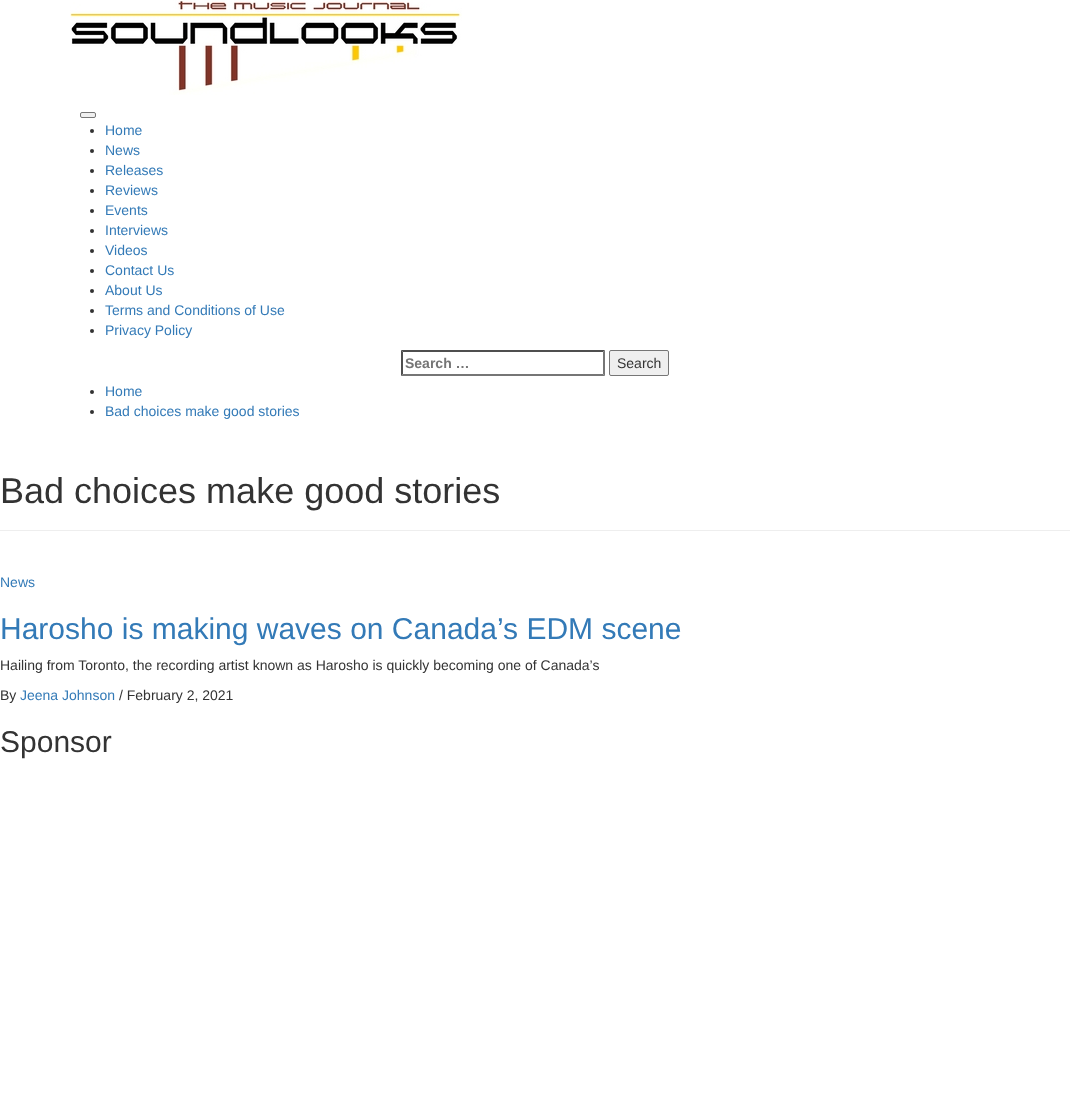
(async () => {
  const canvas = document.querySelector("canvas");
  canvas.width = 1070;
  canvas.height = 1110;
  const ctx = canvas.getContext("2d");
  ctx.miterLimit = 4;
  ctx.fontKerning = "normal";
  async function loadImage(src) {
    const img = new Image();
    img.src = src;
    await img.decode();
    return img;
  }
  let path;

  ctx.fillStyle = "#ffffff";
  ctx.fillRect(0, 0, 1070, 1110);
  ctx.drawImage(await loadImage("img/1.png"), 70, 0, 392, 95);
  ctx.fillStyle = "#efefef";
  ctx.beginPath();
  ctx.roundRect(80.5, 112.5, 15, 5, 1.5);
  ctx.fill();
  ctx.strokeStyle = "#767676";
  ctx.stroke();
  ctx.fillStyle = "#333333";
  ctx.beginPath();
  ctx.arc(92, 131, 2, 0, Math.PI * 2);
  ctx.fill();
  ctx.beginPath();
  ctx.arc(92, 151, 2, 0, Math.PI * 2);
  ctx.fill();
  ctx.beginPath();
  ctx.arc(92, 171, 2, 0, Math.PI * 2);
  ctx.fill();
  ctx.beginPath();
  ctx.arc(92, 191, 2, 0, Math.PI * 2);
  ctx.fill();
  ctx.beginPath();
  ctx.arc(92, 211, 2, 0, Math.PI * 2);
  ctx.fill();
  ctx.beginPath();
  ctx.arc(92, 231, 2, 0, Math.PI * 2);
  ctx.fill();
  ctx.beginPath();
  ctx.arc(92, 251, 2, 0, Math.PI * 2);
  ctx.fill();
  ctx.beginPath();
  ctx.arc(92, 271, 2, 0, Math.PI * 2);
  ctx.fill();
  ctx.beginPath();
  ctx.arc(92, 291, 2, 0, Math.PI * 2);
  ctx.fill();
  ctx.beginPath();
  ctx.arc(92, 311, 2, 0, Math.PI * 2);
  ctx.fill();
  ctx.beginPath();
  ctx.arc(92, 331, 2, 0, Math.PI * 2);
  ctx.fill();
  ctx.fillStyle = "#4f4f4f";
  path = new Path2D("M401 350H605L603 352H403Z");
  ctx.fill(path);
  ctx.fillStyle = "#767676";
  path = new Path2D("M605 350V376L603 374V352Z");
  ctx.fill(path);
  path = new Path2D("M605 376H401L403 374H603Z");
  ctx.fill(path);
  ctx.fillStyle = "#4f4f4f";
  path = new Path2D("M401 376V350L403 352V374Z");
  ctx.fill(path);
  ctx.fillStyle = "#efefef";
  ctx.beginPath();
  ctx.roundRect(609.5, 350.5, 59, 25, 1.5);
  ctx.fill();
  ctx.stroke();
  ctx.fillStyle = "#333333";
  ctx.beginPath();
  ctx.arc(92, 392, 2, 0, Math.PI * 2);
  ctx.fill();
  ctx.beginPath();
  ctx.arc(92, 412, 2, 0, Math.PI * 2);
  ctx.fill();
  ctx.fillStyle = "#eeeeee";
  ctx.fillRect(0, 530, 1070, 1);
  ctx.font = "14px Liberation Sans";
  ctx.fillStyle = "#337ab7";
  for (const [text, x, y] of [
    ["Home", 105, 135],
    ["News", 105, 155],
    ["Releases", 105, 175],
    ["Reviews", 105, 195],
    ["Events", 105, 215],
    ["Interviews", 105, 235],
    ["Videos", 105, 255],
    ["Contact Us", 105, 275],
    ["About Us", 105, 295],
    ["Terms and Conditions of Use", 105, 315],
    ["Privacy Policy", 105, 335],
  ]) {
    ctx.fillText(text, x, y);
  }
  ctx.font = "bold 14px Liberation Sans";
  ctx.fillStyle = "#757575";
  ctx.fillText("Search …", 405, 368);
  ctx.font = "14px Liberation Sans";
  ctx.fillStyle = "#333333";
  ctx.fillText("Search", 617, 368);
  ctx.fillStyle = "#337ab7";
  ctx.fillText("Home", 105, 396);
  ctx.fillText("Bad choices make good stories", 105, 416);
  ctx.font = "36px Liberation Sans";
  ctx.fillStyle = "#333333";
  ctx.fillText("Bad choices make good stories", 0, 503);
  ctx.font = "14px Liberation Sans";
  ctx.fillStyle = "#337ab7";
  ctx.fillText("News", 0, 587);
  ctx.font = "30px Liberation Sans";
  ctx.fillText("Harosho is making waves on Canada’s EDM scene", 0, 639);
  ctx.font = "14px Liberation Sans";
  ctx.fillStyle = "#333333";
  ctx.fillText("Hailing from Toronto, the recording artist known as Harosho is quickly becoming one of Canada’s", 0, 670);
  ctx.fillText("By", 0, 700);
  ctx.fillStyle = "#337ab7";
  ctx.fillText("Jeena Johnson", 20, 700);
  ctx.fillStyle = "#333333";
  ctx.fillText("/ February 2, 2021", 119, 700);
  ctx.font = "30px Liberation Sans";
  ctx.fillText("Sponsor", 0, 752);
})();
